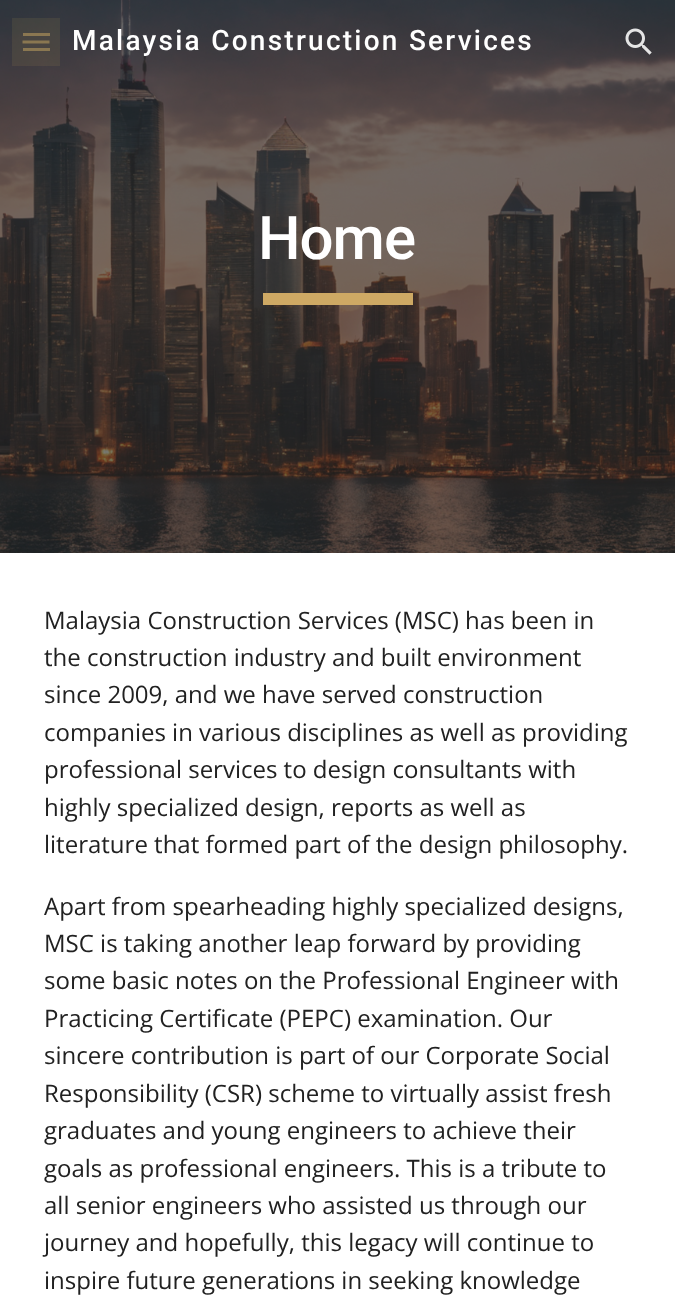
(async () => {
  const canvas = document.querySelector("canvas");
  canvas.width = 675;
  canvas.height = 1316;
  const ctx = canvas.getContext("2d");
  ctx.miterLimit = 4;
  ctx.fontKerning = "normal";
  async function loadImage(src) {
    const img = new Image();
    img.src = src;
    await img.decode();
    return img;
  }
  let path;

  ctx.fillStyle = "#ffffff";
  ctx.fillRect(0, 0, 675, 1316);
  ctx.drawImage(await loadImage("img/2.png"), 0, 0, 675, 553);
  ctx.fillStyle = "#857251";
  ctx.fillRect(23, 33, 27, 3);
  path = new Path2D("M22.5 42H49.5");
  ctx.strokeStyle = "#857251";
  ctx.lineWidth = 3;
  ctx.stroke(path);
  ctx.fillRect(23, 48, 27, 3);
  ctx.fillStyle = "rgba(183, 153, 81, 0.12)";
  ctx.fillRect(12, 18, 48, 48);
  ctx.drawImage(await loadImage("img/1.png"), 625, 28, 27, 27);
  ctx.fillStyle = "#cea964";
  ctx.fillRect(263, 293, 150, 12);
  ctx.letterSpacing = "2.25px";
  ctx.font = "500 28px Roboto";
  ctx.fillStyle = "#ffffff";
  ctx.fillText("Malaysia Construction Services", 72, 50);
  ctx.letterSpacing = "-1px";
  ctx.font = "500 60px Roboto";
  ctx.fillText("Home", 258, 259);
  ctx.letterSpacing = "0px";
  ctx.font = "24px Open Sans";
  ctx.fillStyle = "#212121";
  for (const [text, x, y] of [
    ["Malaysia Construction Services (MSC) has been in", 44, 629],
    ["the construction industry and built environment", 44, 666],
    ["since 2009, and we have served construction", 44, 703],
    ["companies in various disciplines as well as providing", 44, 741],
    ["professional services to design consultants with", 44, 778],
    ["highly specialized design, reports as well as", 44, 816],
    ["literature that formed part of the design philosophy.", 44, 853],
    ["Apart from spearheading highly specialized designs,", 44, 915],
    ["MSC is taking another leap forward by providing", 44, 952],
    ["some basic notes on the Professional Engineer with", 44, 989],
    ["Practicing Certificate (PEPC) examination. Our", 44, 1027],
    ["sincere contribution is part of our Corporate Social", 44, 1064],
    ["Responsibility (CSR) scheme to virtually assist fresh", 44, 1102],
    ["graduates and young engineers to achieve their", 44, 1139],
    ["goals as professional engineers. This is a tribute to", 44, 1177],
    ["all senior engineers who assisted us through our", 44, 1214],
    ["journey and hopefully, this legacy will continue to", 44, 1251],
    ["inspire future generations in seeking knowledge", 44, 1289],
  ]) {
    ctx.fillText(text, x, y);
  }
})();
